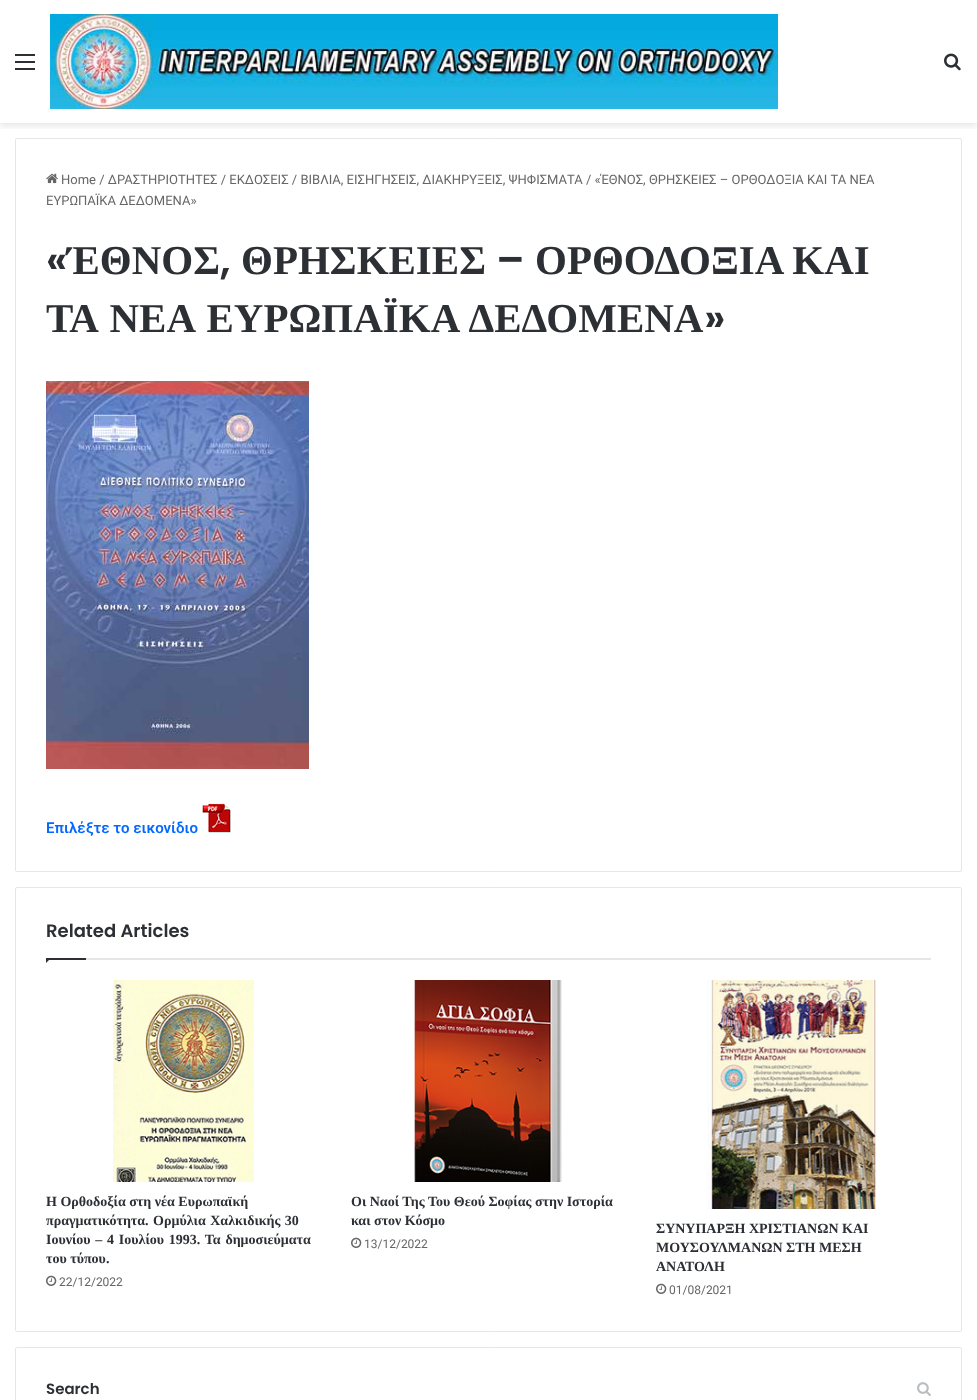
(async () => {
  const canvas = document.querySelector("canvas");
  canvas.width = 977;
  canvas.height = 1400;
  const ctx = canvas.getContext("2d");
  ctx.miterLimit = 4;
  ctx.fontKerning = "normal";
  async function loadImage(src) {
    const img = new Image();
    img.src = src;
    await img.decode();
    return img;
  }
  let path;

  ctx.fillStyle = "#ffffff";
  ctx.fillRect(0, 0, 977, 1400);
  ctx.save();
  ctx.beginPath();
  ctx.rect(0, 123, 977, 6);
  ctx.clip();
  ctx.fillStyle = "rgba(0, 0, 0, 0.1)";
  ctx.filter = "blur(3.5px)";
  ctx.beginPath();
  ctx.rect(0, 3, 977, 123);
  ctx.fill();
  ctx.filter = "none";
  ctx.restore();
  for (const [x, y, w, h, color] of [
    [15, 61, 20, 2, "#2c2f34"],
    [15, 54, 20, 2, "#2c2f34"],
    [15, 68, 20, 2, "#2c2f34"],
  ]) {
    ctx.fillStyle = color;
    ctx.fillRect(x, y, w, h);
  }
  ctx.drawImage(await loadImage("img/1.png"), 50, 14, 728, 95);
  ctx.drawImage(await loadImage("img/2.png"), 944, 53, 17, 18);
  ctx.beginPath();
  ctx.roundRect(15.5, 138.5, 946, 733, 1.5);
  ctx.strokeStyle = "#e6e6e6";
  ctx.stroke();
  ctx.drawImage(await loadImage("img/3.png"), 46, 173, 12, 11);
  ctx.drawImage(await loadImage("img/4.png"), 46, 381, 263, 388);
  ctx.drawImage(await loadImage("img/5.png"), 202, 803, 29, 30);
  ctx.beginPath();
  ctx.roundRect(15.5, 887.5, 946, 444, 1.5);
  ctx.stroke();
  ctx.fillStyle = "#e6e6e6";
  ctx.fillRect(86, 958, 845, 2);
  ctx.fillStyle = "#2c2f34";
  path = new Path2D("M46 958H51L46 963Z");
  ctx.fill(path);
  ctx.fillRect(46, 958, 40, 2);
  ctx.drawImage(await loadImage("img/6.png"), 113, 980, 141, 202);
  ctx.drawImage(await loadImage("img/7.png"), 46, 1275, 11, 11);
  ctx.drawImage(await loadImage("img/8.png"), 414, 980, 148, 202);
  ctx.drawImage(await loadImage("img/7.png"), 351, 1237, 11, 11);
  ctx.drawImage(await loadImage("img/9.png"), 707, 980, 170, 229);
  ctx.drawImage(await loadImage("img/7.png"), 656, 1283, 11, 11);
  ctx.beginPath();
  ctx.roundRect(15.5, 1347.5, 946, 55, 1.5);
  ctx.stroke();
  ctx.drawImage(await loadImage("img/10.png"), 917, 1382, 14, 14);
  ctx.font = "13px Roboto";
  ctx.fillStyle = "#666666";
  ctx.fillText("Home / ΔΡΑΣΤΗΡΙΟΤΗΤΕΣ / ΕΚΔΟΣΕΙΣ / ΒΙΒΛΙΑ, ΕΙΣΗΓΗΣΕΙΣ, ΔΙΑΚΗΡΥΞΕΙΣ, ΨΗΦΙΣΜΑΤΑ / «ΈΘΝΟΣ, ΘΡΗΣΚΕΙΕΣ – ΟΡΘΟΔΟΞΙΑ ΚΑΙ ΤΑ ΝΕΑ", 61, 184);
  ctx.fillText("ΕΥΡΩΠΑΪΚΑ ΔΕΔΟΜΕΝΑ»", 46, 205);
  ctx.font = "600 41px Poppins";
  ctx.fillStyle = "#2c2f34";
  ctx.fillText("«", 46, 274);
  ctx.font = "bold 41px Liberation Serif";
  ctx.fillText("ΈΘΝΟΣ", 67, 274);
  ctx.fillText("ΘΡΗΣΚΕΙΕΣ", 241, 274);
  ctx.font = "600 41px Poppins";
  ctx.fillText("–", 496, 274);
  ctx.font = "bold 41px Liberation Serif";
  ctx.fillText("ΟΡΘΟΔΟΞΙΑ ΚΑΙ", 535, 274);
  ctx.font = "600 41px Poppins";
  ctx.fillText(",", 220, 274);
  ctx.wordSpacing = "2.5px";
  ctx.font = "bold 41px Liberation Serif";
  ctx.fillText("ΤΑ ΝΕΑ ΕΥΡΩΠΑΪΚΑ ΔΕΔΟΜΕΝΑ", 46, 332);
  ctx.wordSpacing = "0px";
  ctx.font = "600 41px Poppins";
  ctx.fillText("»", 704, 332);
  ctx.font = "600 15px Roboto";
  ctx.fillStyle = "#0669ff";
  ctx.fillText("Επιλέξτε το εικονίδιο", 46, 833);
  ctx.font = "600 18px Poppins";
  ctx.fillStyle = "#2c2f34";
  ctx.fillText("Related Articles", 46, 937);
  ctx.font = "bold 14px Liberation Serif";
  ctx.fillText("Η Ορθοδοξία στη νέα Ευρωπαϊκή", 46, 1206);
  ctx.wordSpacing = "1px";
  ctx.fillText("πραγματικότητα. Ορμύλια Χαλκιδικής 30", 46, 1225);
  ctx.wordSpacing = "1.25px";
  ctx.fillText("Ιουνίου – 4 Ιουλίου 1993. Τα δημοσιεύματα", 46, 1244);
  ctx.wordSpacing = "0px";
  ctx.fillText("του τύπου.", 46, 1263);
  ctx.font = "12px Roboto";
  ctx.fillStyle = "#666666";
  ctx.fillText("22/12/2022", 59, 1286);
  ctx.font = "bold 14px Liberation Serif";
  ctx.fillStyle = "#2c2f34";
  ctx.fillText("Οι Ναοί Της Του Θεού Σοφίας στην Ιστορία", 351, 1206);
  ctx.fillText("και στον Κόσμο", 351, 1225);
  ctx.font = "12px Roboto";
  ctx.fillStyle = "#666666";
  ctx.fillText("13/12/2022", 364, 1248);
  ctx.font = "bold 14px Liberation Serif";
  ctx.fillStyle = "#2c2f34";
  for (const [text, x, y] of [
    ["ΣΥΝΥΠΑΡΞΗ ΧΡΙΣΤΙΑΝΩΝ ΚΑΙ", 656, 1233],
    ["ΜΟΥΣΟΥΛΜΑΝΩΝ ΣΤΗ ΜΕΣΗ", 656, 1252],
    ["ΑΝΑΤΟΛΗ", 656, 1271],
  ]) {
    ctx.fillText(text, x, y);
  }
  ctx.font = "12px Roboto";
  ctx.fillStyle = "#666666";
  ctx.fillText("01/08/2021", 669, 1294);
  ctx.font = "600 15px Poppins";
  ctx.fillStyle = "#2c2f34";
  ctx.fillText("Search", 46, 1394);
})();
